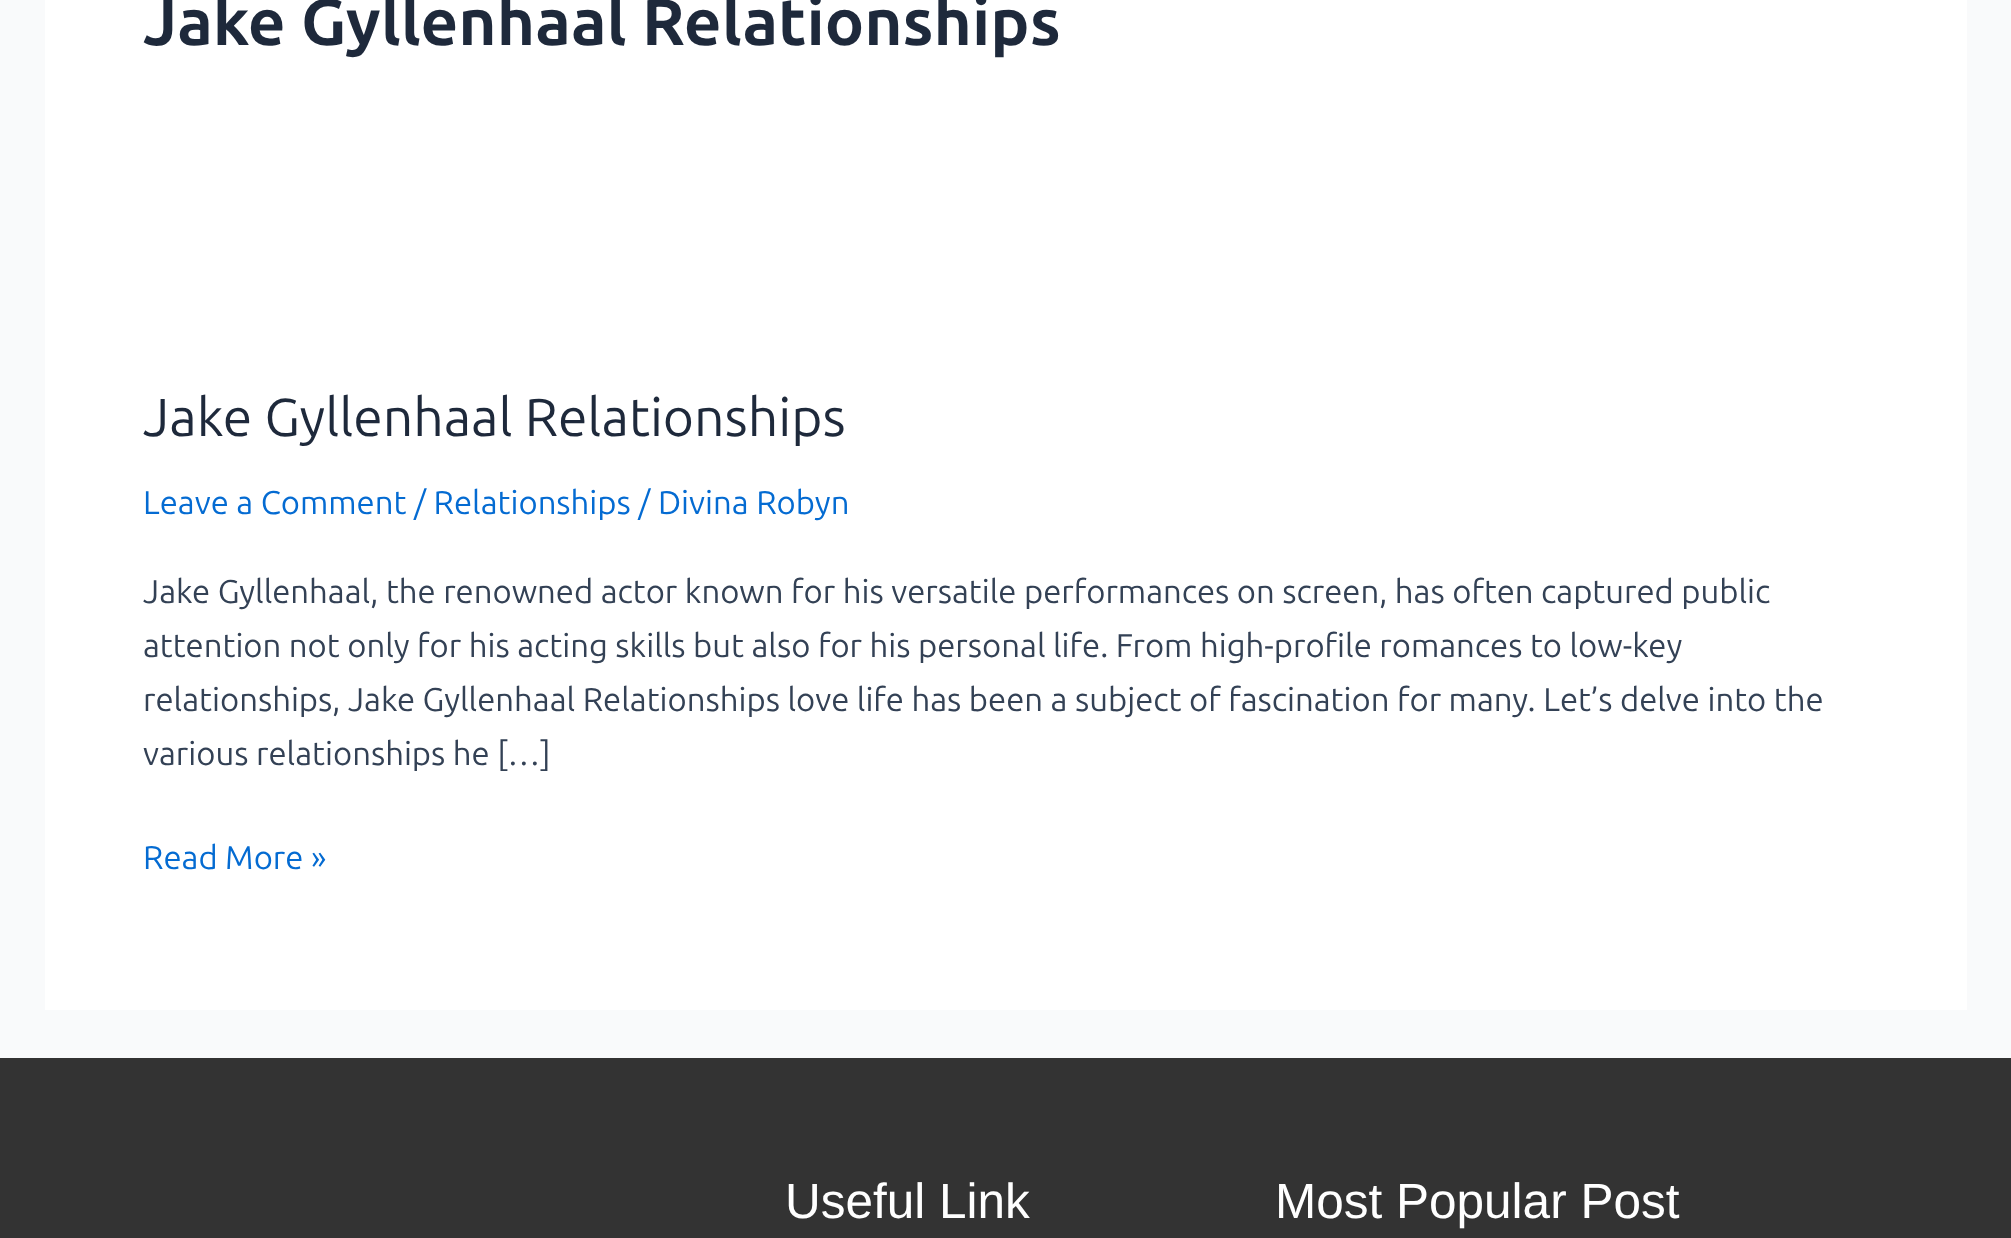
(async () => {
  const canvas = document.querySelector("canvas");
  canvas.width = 2011;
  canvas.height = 1238;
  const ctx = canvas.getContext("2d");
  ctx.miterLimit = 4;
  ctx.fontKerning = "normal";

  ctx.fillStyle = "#f9fafb";
  ctx.fillRect(0, 0, 2011, 1238);
  ctx.fillStyle = "#ffffff";
  ctx.fillRect(45, 0, 1922, 1010);
  ctx.fillStyle = "#333333";
  ctx.fillRect(0, 1058, 2011, 180);
  ctx.font = "bold 65.7px Ubuntu";
  ctx.fillStyle = "#1e293b";
  ctx.fillText("Jake Gyllenhaal Relationships", 143, 45);
  ctx.font = "53.4px Ubuntu";
  ctx.fillText("Jake Gyllenhaal Relationships", 143, 436);
  ctx.font = "32.83px Ubuntu";
  ctx.fillStyle = "#046bd2";
  ctx.fillText("Leave a Comment / Relationships / Divina Robyn", 143, 514);
  ctx.fillStyle = "#334155";
  for (const [text, x, y] of [
    ["Jake Gyllenhaal, the renowned actor known for his versatile performances on screen, has often captured public", 143, 603],
    ["attention not only for his acting skills but also for his personal life. From high-profile romances to low-key", 143, 657],
    ["relationships, Jake Gyllenhaal Relationships love life has been a subject of fascination for many. Let’s delve into the", 143, 711],
    ["various relationships he […]", 143, 765],
  ]) {
    ctx.fillText(text, x, y);
  }
  ctx.fillStyle = "#046bd2";
  ctx.fillText("Read More »", 143, 869);
  ctx.font = "49.5px Liberation Sans";
  ctx.fillStyle = "#ffffff";
  ctx.fillText("Useful Link", 785, 1218);
  ctx.fillText("Most Popular Post", 1275, 1218);
})();
